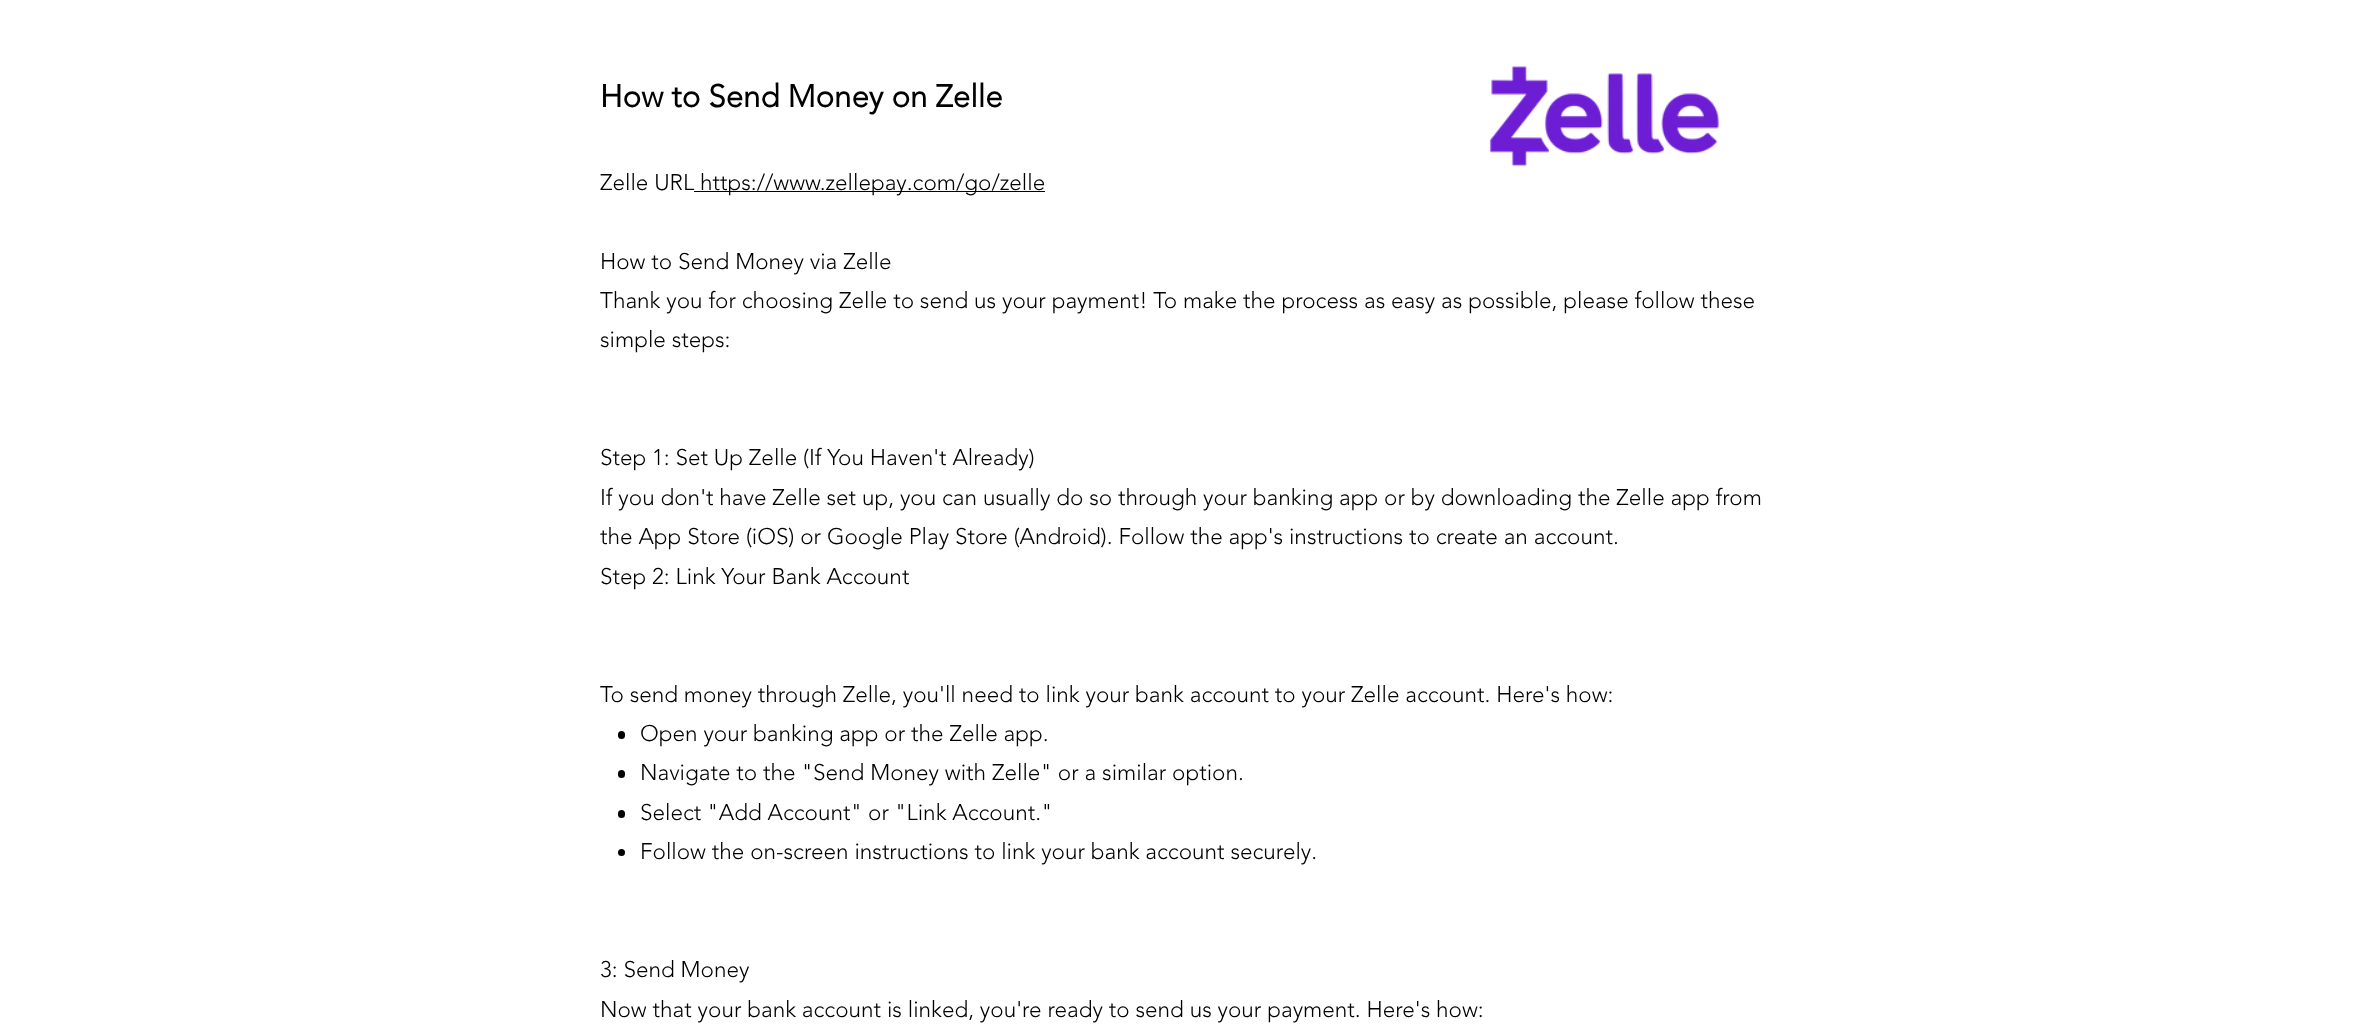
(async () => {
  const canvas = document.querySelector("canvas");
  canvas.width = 2377;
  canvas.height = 1036;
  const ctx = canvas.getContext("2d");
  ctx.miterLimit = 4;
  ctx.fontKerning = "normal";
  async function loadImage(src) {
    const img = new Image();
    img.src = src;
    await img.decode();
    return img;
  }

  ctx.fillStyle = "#ffffff";
  ctx.fillRect(0, 0, 2377, 1036);
  ctx.drawImage(await loadImage("img/1.png"), 1489, 66, 230, 101);
  ctx.fillStyle = "#000000";
  ctx.fillRect(694, 191, 351, 1);
  ctx.beginPath();
  ctx.roundRect(618, 731, 7, 8, 3.5);
  ctx.fill();
  ctx.beginPath();
  ctx.roundRect(618, 770, 7, 8, 3.5);
  ctx.fill();
  ctx.beginPath();
  ctx.roundRect(618, 810, 7, 8, 3.5);
  ctx.fill();
  ctx.beginPath();
  ctx.arc(621.5, 852.5, 3.5, 0, Math.PI * 2);
  ctx.fill();
  ctx.font = "bold 31.25px 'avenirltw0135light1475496'";
  ctx.fillText("How to Send Money on Zelle", 600, 107);
  ctx.font = "300 22.5px 'avenirltw0135light1475496'";
  for (const [text, x, y] of [
    ["Zelle URL", 600, 190],
    ["https://www.zellepay.com/go/zelle", 700, 190],
    ["How to Send Money via Zelle", 600, 269],
    ["Thank you for choosing Zelle to send us your payment! To make the process as easy as possible, please follow these", 600, 308],
    ["simple steps:", 600, 347],
    ["Step 1: Set Up Zelle (If You Haven't Already)", 600, 465],
    ["If you don't have Zelle set up, you can usually do so through your banking app or by downloading the Zelle app from", 600, 505],
    ["the App Store (iOS) or Google Play Store (Android). Follow the app's instructions to create an account.", 600, 544],
    ["Step 2: Link Your Bank Account", 600, 584],
    ["To send money through Zelle, you'll need to link your bank account to your Zelle account. Here's how:", 600, 702],
    ["Open your banking app or the Zelle app.", 640, 741],
    ["Navigate to the \"Send Money with Zelle\" or a similar option.", 640, 780],
    ["Select \"Add Account\" or \"Link Account.\"", 640, 820],
    ["Follow the on-screen instructions to link your bank account securely.", 640, 859],
    ["3: Send Money", 600, 977],
    ["Now that your bank account is linked, you're ready to send us your payment. Here's how:", 600, 1017],
  ]) {
    ctx.fillText(text, x, y);
  }
})();
